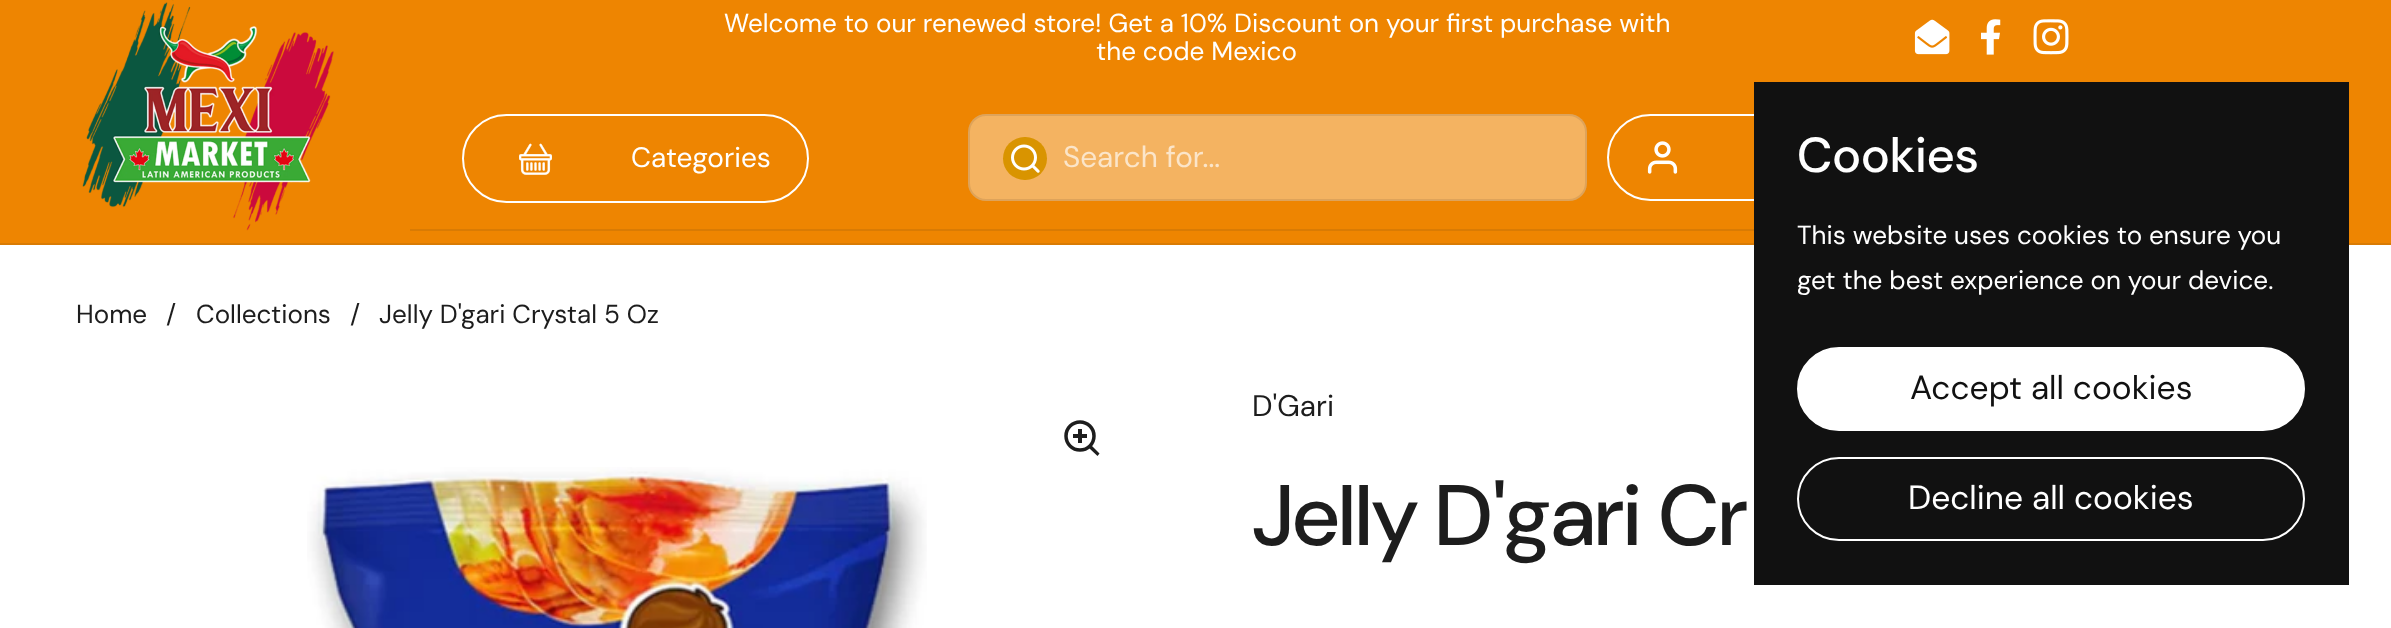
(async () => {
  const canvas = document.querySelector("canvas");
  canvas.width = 2391;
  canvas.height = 628;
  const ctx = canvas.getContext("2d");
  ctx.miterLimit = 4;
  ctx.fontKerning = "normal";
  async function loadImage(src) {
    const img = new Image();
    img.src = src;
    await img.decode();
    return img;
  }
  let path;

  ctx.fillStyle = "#ffffff";
  ctx.fillRect(0, 0, 2391, 628);
  ctx.fillStyle = "#ee8501";
  ctx.fillRect(0, 0, 2391, 243);
  ctx.drawImage(await loadImage("img/1.png"), 1914, 19, 36, 36);
  ctx.drawImage(await loadImage("img/2.png"), 1981, 19, 20, 36);
  ctx.drawImage(await loadImage("img/3.png"), 2033, 19, 36, 36);
  ctx.fillStyle = "#d97b04";
  ctx.fillRect(0, 243, 2391, 2);
  ctx.drawImage(await loadImage("img/4.png"), 82, 0, 252, 231);
  ctx.fillRect(410, 229, 1344, 2);
  ctx.beginPath();
  ctx.roundRect(463, 115, 345, 87, 43.5);
  ctx.strokeStyle = "#ffffff";
  ctx.lineWidth = 2;
  ctx.stroke();
  ctx.drawImage(await loadImage("img/5.png"), 519, 143, 33, 32);
  ctx.fillStyle = "#f4b361";
  ctx.beginPath();
  ctx.roundRect(968, 114, 619, 87, 18);
  ctx.fill();
  ctx.beginPath();
  ctx.roundRect(969, 115, 617, 85, 17);
  ctx.strokeStyle = "rgba(29, 29, 29, 0.1)";
  ctx.stroke();
  ctx.fillStyle = "#d99400";
  ctx.beginPath();
  ctx.roundRect(1003, 137, 44, 43, 21.5);
  ctx.fill();
  ctx.drawImage(await loadImage("img/6.png"), 1011, 144, 29, 29);
  ctx.beginPath();
  ctx.roundRect(1608, 115, 334, 85, 42.5);
  ctx.strokeStyle = "#ffffff";
  ctx.stroke();
  ctx.drawImage(await loadImage("img/7.png"), 1647, 141, 31, 33);
  ctx.fillStyle = "#111111";
  ctx.fillRect(1754, 82, 595, 503);
  ctx.fillStyle = "#ffffff";
  ctx.beginPath();
  ctx.roundRect(1798, 348, 506, 82, 41);
  ctx.fill();
  ctx.stroke();
  ctx.beginPath();
  ctx.roundRect(1798, 458, 506, 82, 41);
  ctx.stroke();
  ctx.beginPath();
  ctx.arc(1080, 436, 14, 0, Math.PI * 2);
  ctx.strokeStyle = "#1d1d1d";
  ctx.lineWidth = 3.5;
  ctx.stroke();
  ctx.fillStyle = "#1d1d1d";
  ctx.fillRect(1078, 429, 4, 14);
  ctx.fillRect(1073, 434, 14, 4);
  path = new Path2D("M1089 448L1091.5 445.5L1099.5 453.5L1097.5 456Z");
  ctx.fill(path);
  ctx.drawImage(await loadImage("img/8.png"), 307, 467, 620, 161);
  ctx.font = "26.05px DM Sans";
  ctx.fillStyle = "#ffffff";
  ctx.fillText("Welcome to our renewed store! Get a 10% Discount on your first purchase with", 724, 32);
  ctx.fillText("the code Mexico", 1096, 60);
  ctx.font = "28px 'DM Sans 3'";
  ctx.fillText("Categories", 631, 167);
  ctx.font = "29.75px 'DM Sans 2'";
  ctx.fillStyle = "#fbe5c9";
  ctx.fillText("Search for...", 1063, 167);
  ctx.font = "500 49px 'DM Sans 2'";
  ctx.fillStyle = "#ffffff";
  ctx.fillText("Cookies", 1797, 172);
  ctx.font = "26.05px DM Sans";
  ctx.fillText("This website uses cookies to ensure you", 1797, 244);
  ctx.fillText("get the best experience on your device.", 1797, 289);
  ctx.font = "33.5px 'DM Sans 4'";
  ctx.fillStyle = "#111111";
  ctx.fillText("Accept all cookies", 1910, 399);
  ctx.fillStyle = "#ffffff";
  ctx.fillText("Decline all cookies", 1908, 509);
  ctx.font = "26.05px DM Sans";
  ctx.fillStyle = "#1d1d1d";
  for (const [text, x, y] of [
    ["Home", 76, 323],
    ["/", 166, 323],
    ["Collections", 196, 323],
    ["/", 350, 323],
    ["Jelly D'gari Crystal 5 Oz", 379, 323],
  ]) {
    ctx.fillText(text, x, y);
  }
  ctx.font = "29.75px 'DM Sans 2'";
  ctx.fillText("D'Gari", 1252, 416);
  ctx.font = "500 85.75px DM Sans";
  ctx.fillText("Jelly D'gari Cr", 1252, 545);
})();
